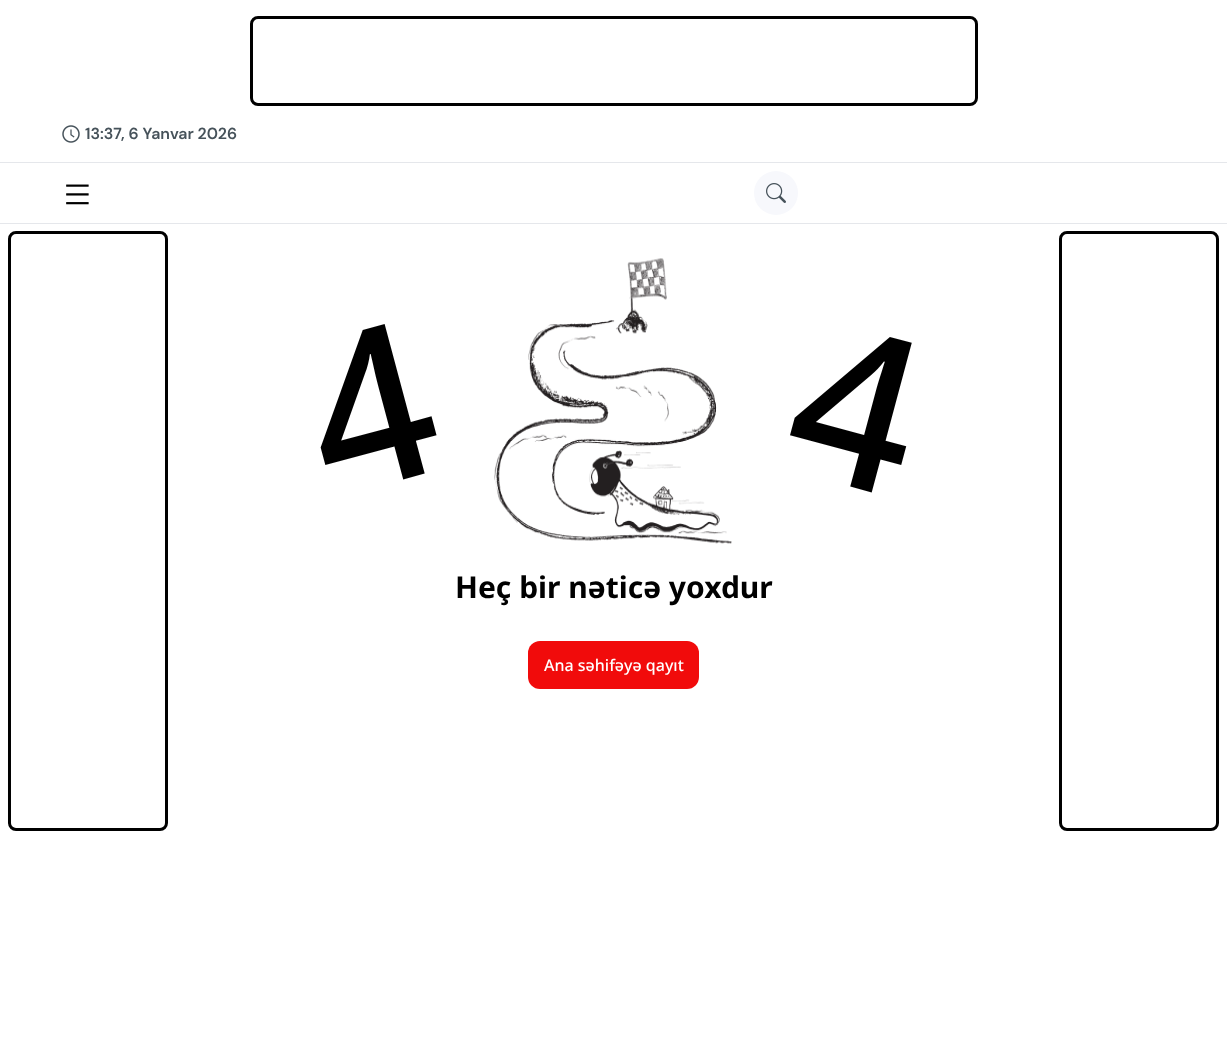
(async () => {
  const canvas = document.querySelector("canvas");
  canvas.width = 1227;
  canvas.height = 1057;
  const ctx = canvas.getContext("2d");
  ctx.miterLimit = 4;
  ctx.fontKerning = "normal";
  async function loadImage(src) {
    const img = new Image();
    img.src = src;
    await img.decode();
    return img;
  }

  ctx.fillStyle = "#ffffff";
  ctx.fillRect(0, 0, 1227, 1057);
  ctx.beginPath();
  ctx.roundRect(251.5, 17.5, 725, 87, 6.5);
  ctx.strokeStyle = "#000000";
  ctx.lineWidth = 3;
  ctx.stroke();
  ctx.drawImage(await loadImage("img/1.png"), 62, 125, 18, 18);
  ctx.fillStyle = "#e5e7eb";
  ctx.fillRect(0, 162, 1227, 1);
  ctx.fillRect(0, 223, 1227, 1);
  ctx.drawImage(await loadImage("img/2.png"), 66, 184, 23, 21);
  ctx.fillStyle = "#f7f8fc";
  ctx.beginPath();
  ctx.arc(776, 193, 22, 0, Math.PI * 2);
  ctx.fill();
  ctx.drawImage(await loadImage("img/3.png"), 766, 183, 20, 20);
  ctx.beginPath();
  ctx.roundRect(9.5, 232.5, 157, 597, 6.5);
  ctx.stroke();
  ctx.beginPath();
  ctx.roundRect(1060.5, 232.5, 157, 597, 6.5);
  ctx.stroke();
  ctx.drawImage(await loadImage("img/4.png"), 494, 258, 238, 286);
  ctx.fillStyle = "#f10b0b";
  ctx.beginPath();
  ctx.roundRect(528, 641, 171, 48, 12);
  ctx.fill();
  ctx.font = "600 16px DM Sans";
  ctx.fillStyle = "#46525a";
  ctx.fillText("13:37, 6 Yanvar 2026", 85, 139);
  ctx.font = "500 216px Noto Sans";
  ctx.fillStyle = "#000000";
  ctx.save();
  ctx.translate(330, 499);
  ctx.rotate(-15 * Math.PI / 180);
  ctx.fillText("4", 0, 0);
  ctx.restore();
  ctx.save();
  ctx.translate(777, 467);
  ctx.rotate(15 * Math.PI / 180);
  ctx.fillText("4", 0, 0);
  ctx.restore();
  ctx.font = "bold 30px Noto Sans";
  ctx.fillText("Heç bir nəticə yoxdur", 455, 598);
  ctx.font = "500 16px Noto Sans";
  ctx.fillStyle = "#ffffff";
  ctx.fillText("Ana səhifəyə qayıt", 544, 671);
})();
